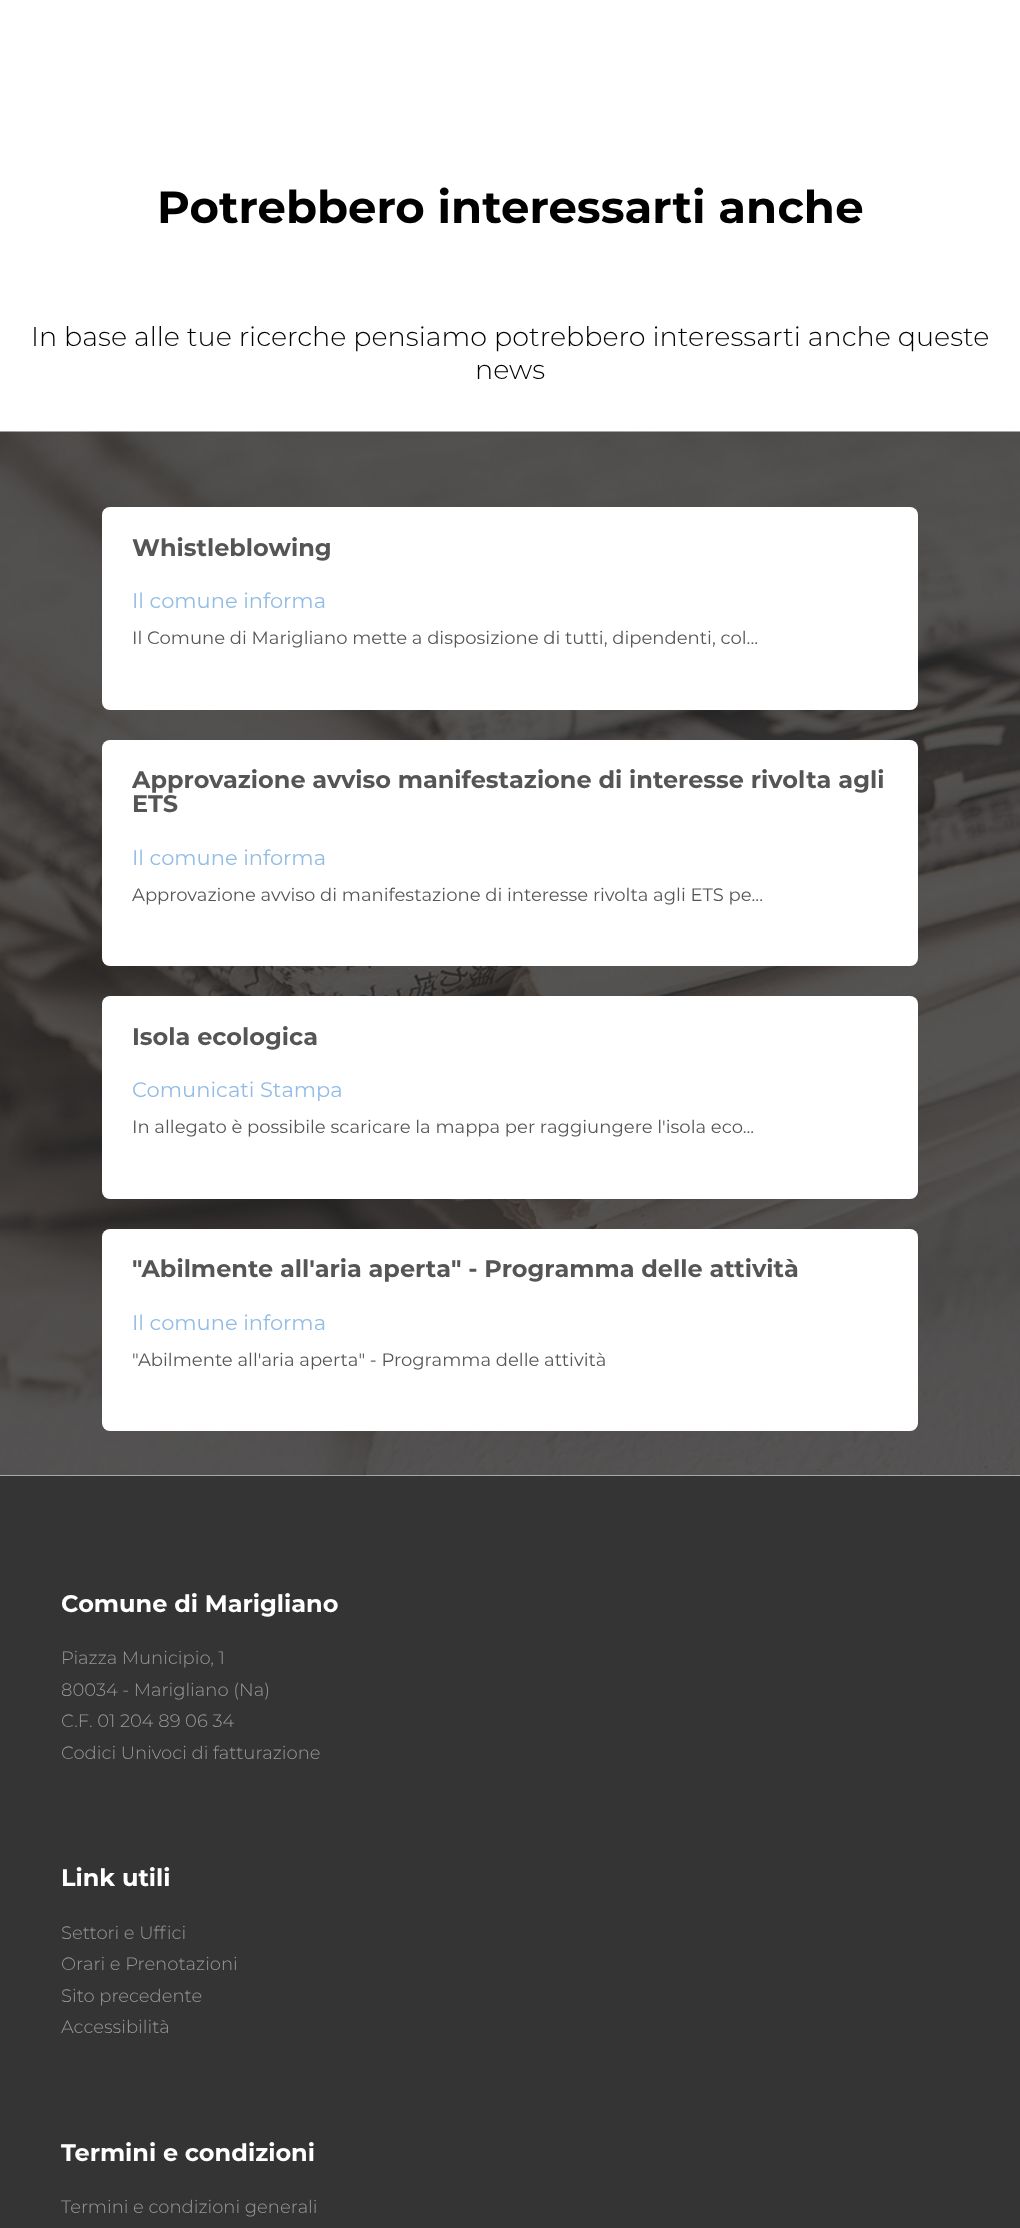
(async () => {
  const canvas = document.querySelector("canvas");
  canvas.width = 1020;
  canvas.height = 2228;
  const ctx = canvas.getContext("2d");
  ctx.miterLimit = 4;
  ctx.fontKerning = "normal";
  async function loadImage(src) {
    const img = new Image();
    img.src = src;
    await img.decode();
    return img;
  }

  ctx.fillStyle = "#ffffff";
  ctx.fillRect(0, 0, 1020, 2228);
  ctx.drawImage(await loadImage("img/1.png"), 0, 431, 1020, 1045);
  ctx.beginPath();
  ctx.roundRect(102, 507, 816, 203, 8);
  ctx.fill();
  ctx.beginPath();
  ctx.roundRect(102, 740, 816, 226, 8);
  ctx.fill();
  ctx.beginPath();
  ctx.roundRect(102, 996, 816, 203, 8);
  ctx.fill();
  ctx.beginPath();
  ctx.roundRect(102, 1229, 816, 202, 8);
  ctx.fill();
  ctx.fillStyle = "#343434";
  ctx.fillRect(0, 1476, 1020, 752);
  ctx.font = "bold 45px Montserrat";
  ctx.fillStyle = "#000000";
  ctx.fillText("Potrebbero interessarti anche", 157, 223);
  ctx.font = "300 27px Montserrat";
  ctx.fillText("In base alle tue ricerche pensiamo potrebbero interessarti anche queste", 31, 346);
  ctx.fillText("news", 475, 379);
  ctx.font = "bold 24px Montserrat";
  ctx.fillStyle = "#555555";
  ctx.fillText("Whistleblowing", 132, 556);
  ctx.font = "21px Montserrat";
  ctx.fillStyle = "#92bce6";
  ctx.fillText("Il comune informa", 132, 608);
  ctx.font = "18px Montserrat";
  ctx.fillStyle = "#555555";
  ctx.fillText("Il Comune di Marigliano mette a disposizione di tutti, dipendenti, col...", 132, 644);
  ctx.font = "bold 24px Montserrat";
  ctx.fillText("Approvazione avviso manifestazione di interesse rivolta agli", 132, 788);
  ctx.fillText("ETS", 132, 812);
  ctx.font = "21px Montserrat";
  ctx.fillStyle = "#92bce6";
  ctx.fillText("Il comune informa", 132, 865);
  ctx.font = "18px Montserrat";
  ctx.fillStyle = "#555555";
  ctx.fillText("Approvazione avviso di manifestazione di interesse rivolta agli ETS pe...", 132, 901);
  ctx.font = "bold 24px Montserrat";
  ctx.fillText("Isola ecologica", 132, 1045);
  ctx.font = "21px Montserrat";
  ctx.fillStyle = "#92bce6";
  ctx.fillText("Comunicati Stampa", 132, 1097);
  ctx.font = "18px Montserrat";
  ctx.fillStyle = "#555555";
  ctx.fillText("In allegato è possibile scaricare la mappa per raggiungere l'isola eco...", 132, 1133);
  ctx.font = "bold 24px Montserrat";
  ctx.fillText("\"Abilmente all'aria aperta\" - Programma delle attività", 132, 1277);
  ctx.font = "21px Montserrat";
  ctx.fillStyle = "#92bce6";
  ctx.fillText("Il comune informa", 132, 1330);
  ctx.font = "18px Montserrat";
  ctx.fillStyle = "#555555";
  ctx.fillText("\"Abilmente all'aria aperta\" - Programma delle attività", 132, 1366);
  ctx.font = "bold 24px Montserrat";
  ctx.fillStyle = "#ffffff";
  ctx.fillText("Comune di Marigliano", 61, 1612);
  ctx.font = "300 18px Montserrat";
  ctx.fillStyle = "#999999";
  for (const [text, x, y] of [
    ["Piazza Municipio, 1", 61, 1664],
    ["80034 - Marigliano (Na)", 61, 1696],
    ["C.F. 01 204 89 06 34", 61, 1727],
    ["Codici Univoci di fatturazione", 61, 1759],
  ]) {
    ctx.fillText(text, x, y);
  }
  ctx.font = "bold 24px Montserrat";
  ctx.fillStyle = "#ffffff";
  ctx.fillText("Link utili", 61, 1886);
  ctx.font = "300 18px Montserrat";
  ctx.fillStyle = "#999999";
  for (const [text, x, y] of [
    ["Settori e Uffici", 61, 1939],
    ["Orari e Prenotazioni", 61, 1970],
    ["Sito precedente", 61, 2002],
    ["Accessibilità", 61, 2033],
  ]) {
    ctx.fillText(text, x, y);
  }
  ctx.font = "bold 24px Montserrat";
  ctx.fillStyle = "#ffffff";
  ctx.fillText("Termini e condizioni", 61, 2161);
  ctx.font = "300 18px Montserrat";
  ctx.fillStyle = "#999999";
  ctx.fillText("Termini e condizioni generali", 61, 2213);
})();
